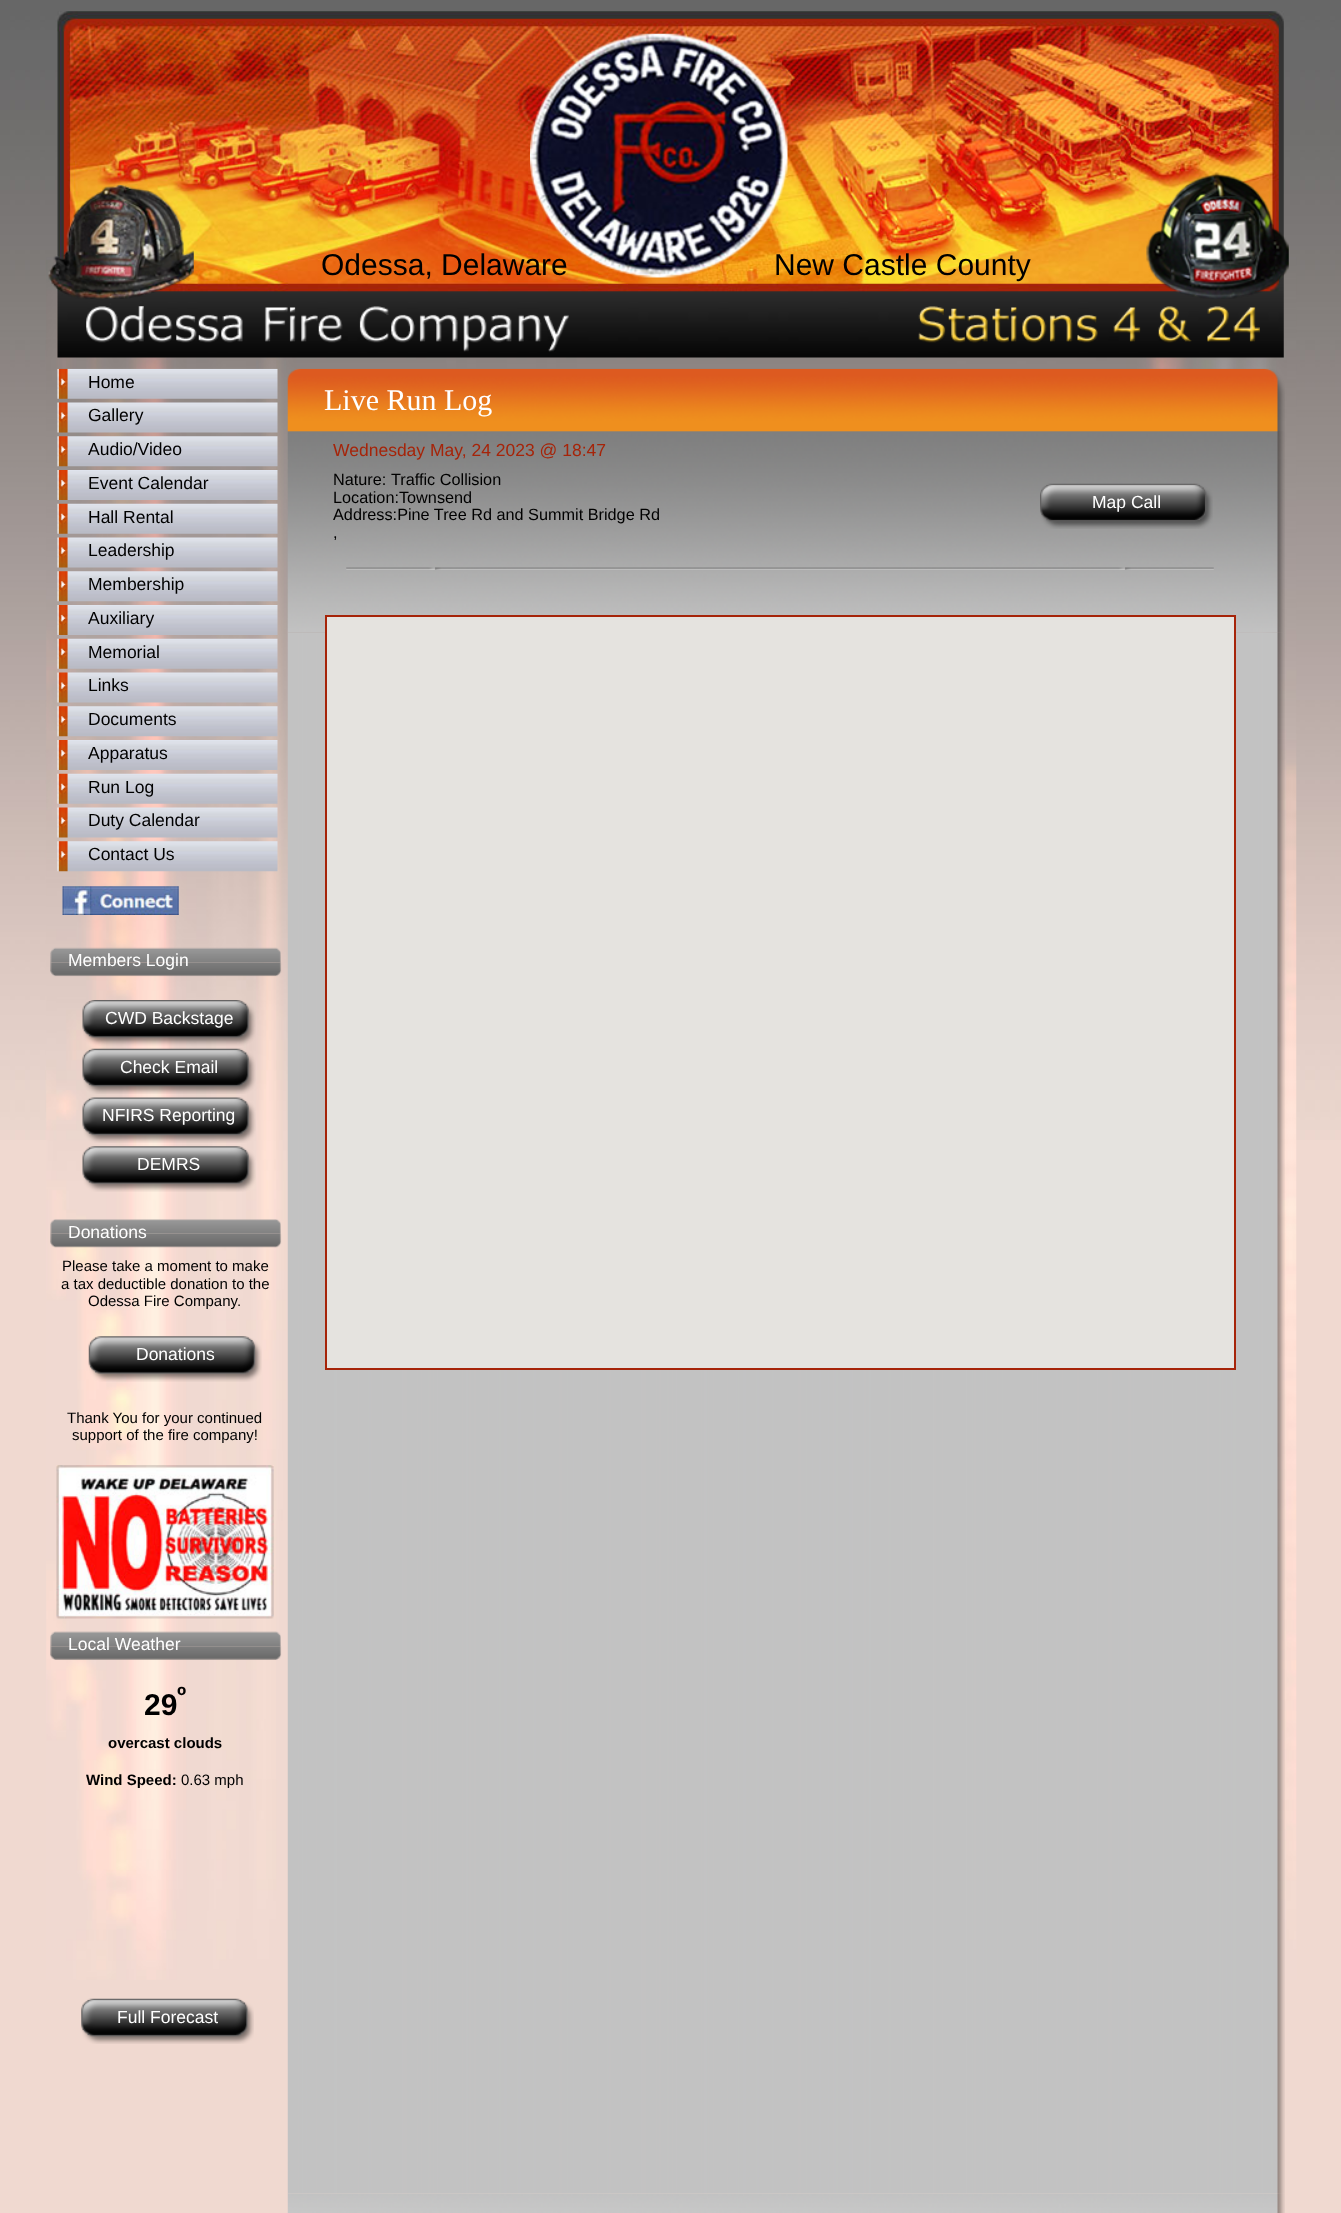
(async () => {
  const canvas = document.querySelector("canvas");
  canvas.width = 1341;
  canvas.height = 2213;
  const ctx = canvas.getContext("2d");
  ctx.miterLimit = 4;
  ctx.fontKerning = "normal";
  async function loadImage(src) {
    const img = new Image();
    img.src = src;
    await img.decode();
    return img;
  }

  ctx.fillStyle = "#f0d9d0";
  ctx.fillRect(0, 0, 1341, 2213);
  ctx.drawImage(await loadImage("img/1.png"), 0, 0, 1341, 1140);
  ctx.drawImage(await loadImage("img/2.png"), 46, 257, 1251, 1723);
  ctx.drawImage(await loadImage("img/3.png"), 57, 11, 1227, 347);
  ctx.drawImage(await loadImage("img/4.png"), 48, 185, 146, 120);
  ctx.drawImage(await loadImage("img/5.png"), 530, 33, 258, 245);
  ctx.drawImage(await loadImage("img/6.png"), 1146, 172, 143, 127);
  ctx.drawImage(await loadImage("img/7.png"), 86, 306, 483, 46);
  ctx.drawImage(await loadImage("img/8.png"), 918, 306, 342, 37);
  ctx.drawImage(await loadImage("img/9.png"), 57, 368, 221, 31);
  ctx.drawImage(await loadImage("img/10.png"), 57, 402, 221, 31);
  ctx.drawImage(await loadImage("img/11.png"), 57, 436, 221, 31);
  ctx.drawImage(await loadImage("img/12.png"), 57, 470, 221, 30);
  ctx.drawImage(await loadImage("img/13.png"), 57, 503, 221, 31);
  ctx.drawImage(await loadImage("img/14.png"), 57, 537, 221, 31);
  ctx.drawImage(await loadImage("img/15.png"), 57, 571, 221, 31);
  ctx.drawImage(await loadImage("img/16.png"), 57, 605, 221, 30);
  ctx.drawImage(await loadImage("img/17.png"), 57, 638, 221, 31);
  ctx.drawImage(await loadImage("img/18.png"), 57, 672, 221, 31);
  ctx.drawImage(await loadImage("img/19.png"), 57, 706, 221, 31);
  ctx.drawImage(await loadImage("img/20.png"), 57, 740, 221, 30);
  ctx.drawImage(await loadImage("img/21.png"), 57, 773, 221, 31);
  ctx.drawImage(await loadImage("img/22.png"), 57, 807, 221, 31);
  ctx.drawImage(await loadImage("img/23.png"), 57, 841, 221, 31);
  ctx.drawImage(await loadImage("img/24.png"), 62, 886, 117, 29);
  ctx.drawImage(await loadImage("img/25.png"), 50, 947, 231, 16);
  ctx.drawImage(await loadImage("img/26.png"), 50, 962, 232, 15);
  ctx.drawImage(await loadImage("img/27.png"), 82, 1000, 174, 46);
  ctx.drawImage(await loadImage("img/28.png"), 82, 1048, 174, 46);
  ctx.drawImage(await loadImage("img/29.png"), 82, 1097, 174, 46);
  ctx.drawImage(await loadImage("img/30.png"), 82, 1146, 174, 46);
  ctx.drawImage(await loadImage("img/31.png"), 50, 1219, 231, 15);
  ctx.drawImage(await loadImage("img/32.png"), 50, 1233, 232, 15);
  ctx.drawImage(await loadImage("img/33.png"), 88, 1336, 174, 46);
  ctx.drawImage(await loadImage("img/34.png"), 56, 1465, 218, 154);
  ctx.drawImage(await loadImage("img/35.png"), 50, 1631, 231, 16);
  ctx.drawImage(await loadImage("img/36.png"), 50, 1646, 232, 14);
  ctx.drawImage(await loadImage("img/37.png"), 81, 1998, 173, 46);
  ctx.drawImage(await loadImage("img/39.png"), 287, 632, 998, 1562);
  ctx.drawImage(await loadImage("img/38.png"), 287, 368, 998, 265);
  ctx.drawImage(await loadImage("img/40.png"), 1040, 483, 173, 46);
  ctx.drawImage(await loadImage("img/41.png"), 346, 567, 868, 3);
  ctx.strokeStyle = "#a62409";
  ctx.lineWidth = 3;
  ctx.strokeRect(326.5, 616.5, 908, 752);
  ctx.fillStyle = "#e5e3df";
  ctx.fillRect(327, 617, 907, 751);
  ctx.drawImage(await loadImage("img/42.png"), 287, 2193, 998, 20);
  ctx.font = "30px Liberation Sans";
  ctx.fillStyle = "#000000";
  ctx.fillText("Odessa, Delaware", 321, 275);
  ctx.fillText("New Castle County", 774, 275);
  ctx.font = "17.5px Liberation Sans";
  for (const [text, x, y] of [
    ["Home", 88, 388],
    ["Gallery", 88, 421],
    ["Audio/Video", 88, 455],
    ["Event Calendar", 88, 489],
    ["Hall Rental", 88, 523],
    ["Leadership", 88, 556],
    ["Membership", 88, 590],
    ["Auxiliary", 88, 624],
    ["Memorial", 88, 658],
    ["Links", 88, 691],
    ["Documents", 88, 725],
    ["Apparatus", 88, 759],
    ["Run Log", 88, 793],
    ["Duty Calendar", 88, 826],
    ["Contact Us", 88, 860],
  ]) {
    ctx.fillText(text, x, y);
  }
  ctx.fillStyle = "#ffffff";
  for (const [text, x, y] of [
    ["Members Login", 68, 966],
    ["CWD Backstage", 105, 1024],
    ["Check Email", 120, 1073],
    ["NFIRS Reporting", 102, 1121],
    ["DEMRS", 137, 1170],
    ["Donations", 68, 1238],
  ]) {
    ctx.fillText(text, x, y);
  }
  ctx.font = "15px Liberation Sans";
  ctx.fillStyle = "#000000";
  for (const [text, x, y] of [
    ["Please take a moment to make", 62, 1271],
    ["a tax deductible donation to the", 61, 1289],
    ["Odessa Fire Company.", 88, 1306],
  ]) {
    ctx.fillText(text, x, y);
  }
  ctx.font = "17.5px Liberation Sans";
  ctx.fillStyle = "#ffffff";
  ctx.fillText("Donations", 136, 1360);
  ctx.font = "15px Liberation Sans";
  ctx.fillStyle = "#000000";
  ctx.fillText("Thank You for your continued", 67, 1423);
  ctx.fillText("support of the fire company!", 72, 1440);
  ctx.font = "17.5px Liberation Sans";
  ctx.fillStyle = "#ffffff";
  ctx.fillText("Local Weather", 68, 1650);
  ctx.font = "bold 25px Liberation Sans";
  ctx.fillStyle = "#000000";
  ctx.fillText("º", 177, 1704);
  ctx.font = "bold 30px Liberation Sans";
  ctx.fillText("29", 144, 1715);
  ctx.font = "bold 15px Liberation Sans";
  ctx.fillText("overcast clouds", 108, 1748);
  ctx.fillText("Wind Speed:", 86, 1785);
  ctx.font = "15px Liberation Sans";
  ctx.fillText("0.63 mph", 181, 1785);
  ctx.font = "17.5px Liberation Sans";
  ctx.fillStyle = "#ffffff";
  ctx.fillText("Full Forecast", 117, 2023);
  ctx.font = "30px Liberation Serif";
  ctx.fillText("Live Run Log", 324, 410);
  ctx.font = "17.5px Liberation Sans";
  ctx.fillStyle = "#a62409";
  ctx.fillText("Wednesday May, 24 2023 @ 18:47", 333, 456);
  ctx.font = "16.25px Liberation Sans";
  ctx.fillStyle = "#000000";
  for (const [text, x, y] of [
    ["Nature:", 333, 485],
    ["Traffic Collision", 391, 485],
    ["Location:Townsend", 333, 503],
  ]) {
    ctx.fillText(text, x, y);
  }
  ctx.font = "17.5px Liberation Sans";
  ctx.fillStyle = "#ffffff";
  ctx.fillText("Map Call", 1092, 508);
  ctx.font = "16.25px Liberation Sans";
  ctx.fillStyle = "#000000";
  ctx.fillText("Address:Pine Tree Rd and Summit Bridge Rd", 333, 520);
  ctx.fillText(",", 333, 538);
})();
